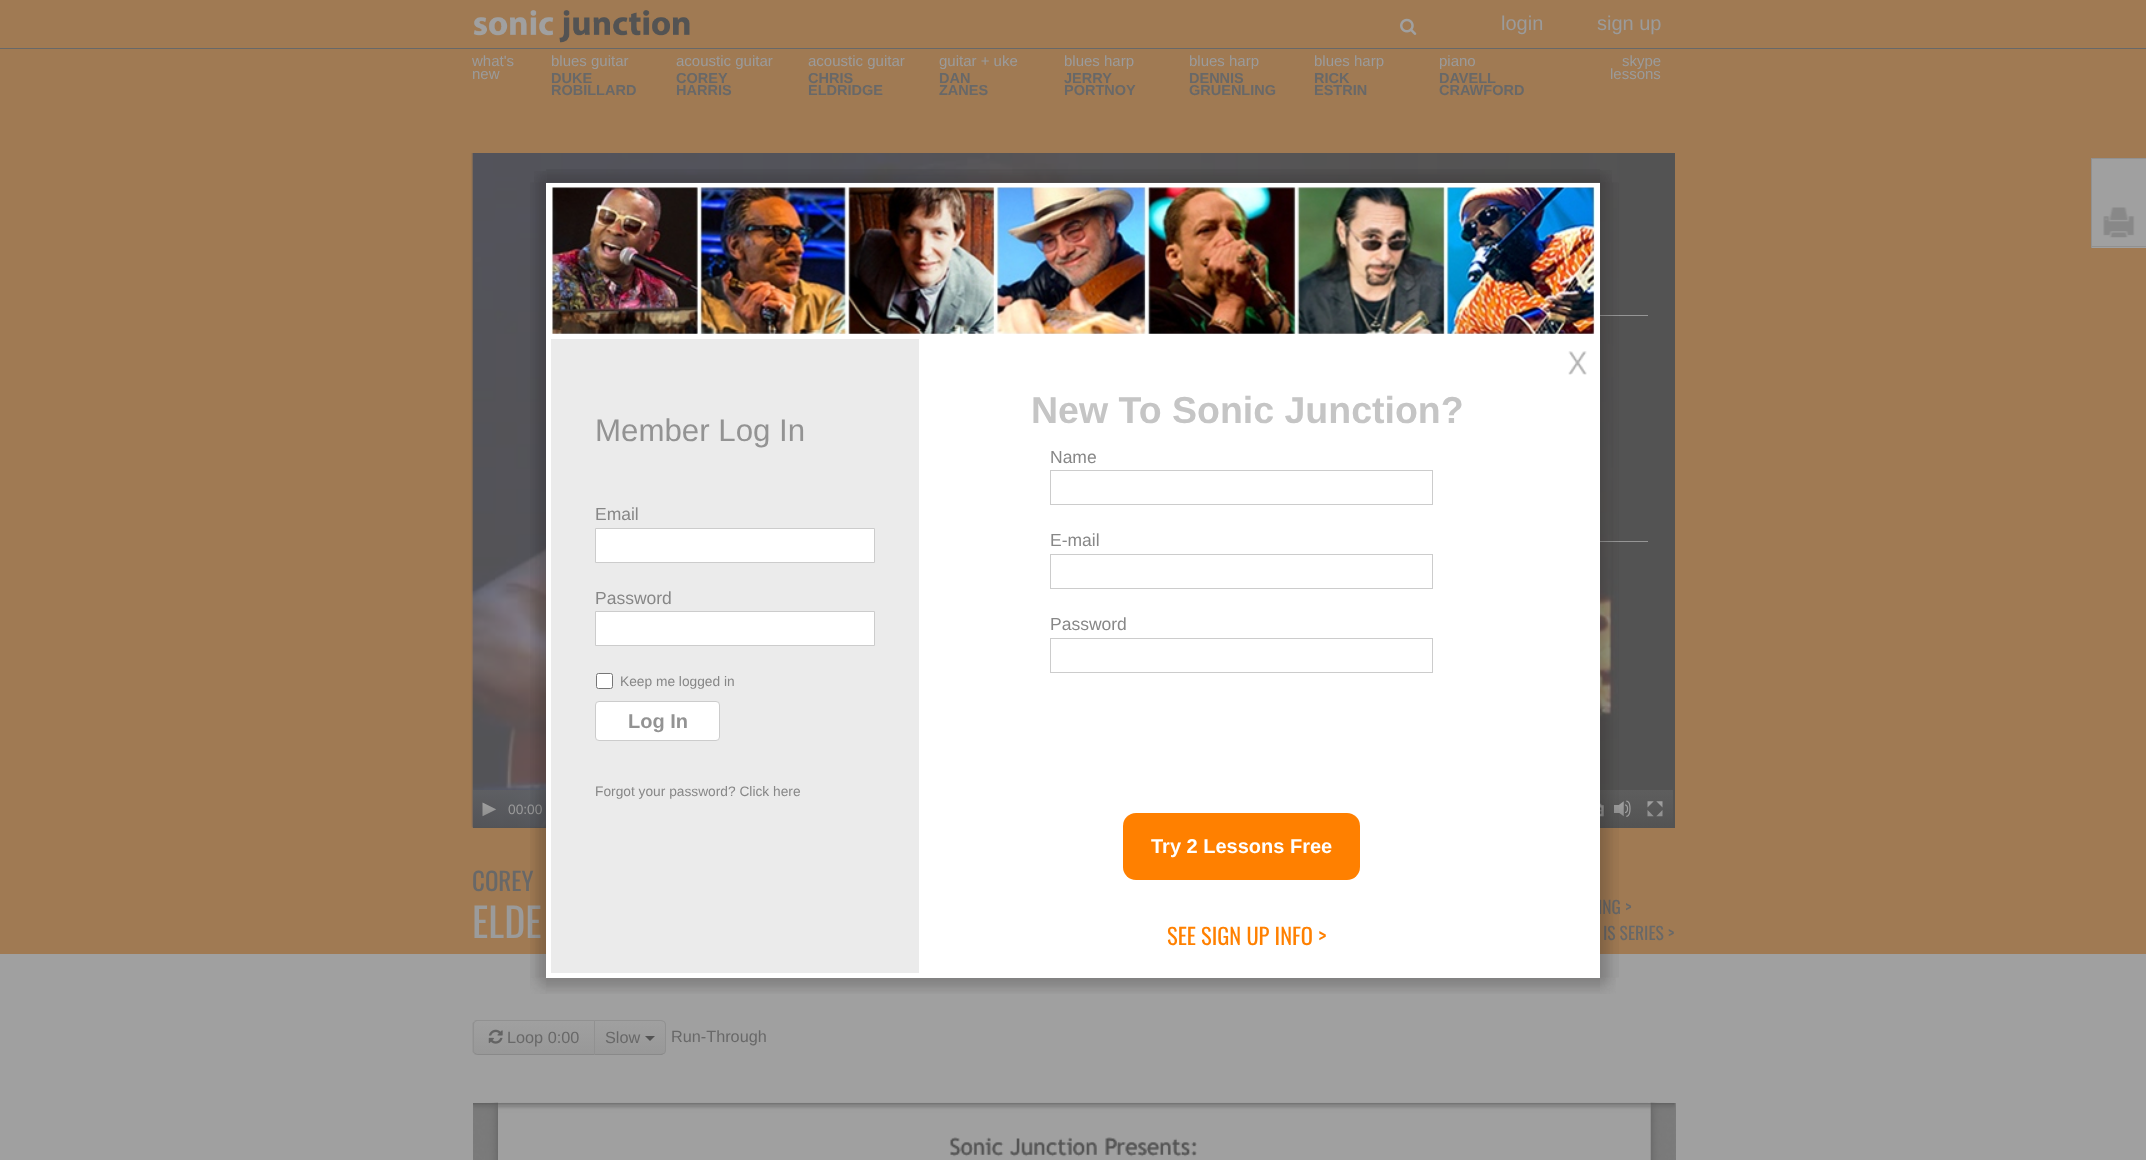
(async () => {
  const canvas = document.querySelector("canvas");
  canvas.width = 2146;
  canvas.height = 1160;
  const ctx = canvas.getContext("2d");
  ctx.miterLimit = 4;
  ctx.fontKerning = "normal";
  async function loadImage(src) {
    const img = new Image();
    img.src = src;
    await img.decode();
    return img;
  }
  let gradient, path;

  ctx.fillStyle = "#a0a0a0";
  ctx.fillRect(0, 0, 2146, 1160);
  ctx.fillStyle = "#686868";
  ctx.fillRect(0, 48, 2146, 1);
  ctx.fillStyle = "#a07a53";
  ctx.fillRect(0, 0, 2146, 48);
  ctx.drawImage(await loadImage("img/1.png"), 473, 10, 217, 33);
  ctx.drawImage(await loadImage("img/2.png"), 1400, 18, 17, 17);
  ctx.fillRect(0, 49, 2146, 905);
  ctx.fillStyle = "#535353";
  ctx.fillRect(473, 153, 1202, 675);
  ctx.drawImage(await loadImage("img/13.png"), 471, 153, 1148, 675);
  gradient = ctx.createLinearGradient(1073, 790, 1073, 828);
  gradient.addColorStop(0, "rgba(98, 98, 98, 0.7)");
  gradient.addColorStop(1, "rgba(83, 83, 83, 0.7)");
  ctx.fillStyle = gradient;
  ctx.fillRect(473, 790, 1200, 38);
  ctx.fillStyle = "#ffffff";
  ctx.fillRect(551, 188, 1044, 785);
  ctx.drawImage(await loadImage("img/4.png"), 546, 169, 1054, 14);
  ctx.drawImage(await loadImage("img/5.png"), 1600, 170, 12, 13);
  ctx.drawImage(await loadImage("img/11.png"), 546, 978, 1054, 16);
  ctx.drawImage(await loadImage("img/10.png"), 530, 977, 17, 17);
  ctx.fillStyle = "#969696";
  ctx.fillRect(1600, 315, 48, 1);
  ctx.fillRect(1600, 541, 48, 1);
  ctx.drawImage(await loadImage("img/14.png"), 482, 802, 15, 15);
  ctx.drawImage(await loadImage("img/15.png"), 1600, 800, 5, 18);
  ctx.drawImage(await loadImage("img/16.png"), 1614, 800, 17, 17);
  ctx.drawImage(await loadImage("img/17.png"), 1647, 801, 16, 16);
  for (const [x, y, w, h, color] of [
    [2092, 159, 54, 89, "#a0a0a0"],
    [2091, 158, 55, 1, "#919191"],
    [2091, 246, 55, 1, "#919191"],
    [2091, 158, 1, 90, "#919191"],
  ]) {
    ctx.fillStyle = color;
    ctx.fillRect(x, y, w, h);
  }
  ctx.drawImage(await loadImage("img/18.png"), 2103, 207, 32, 31);
  ctx.save();
  ctx.beginPath();
  ctx.roundRect(473, 1020, 122, 35, [5, 0, 0, 5]);
  ctx.clip();
  gradient = ctx.createLinearGradient(534, 1021, 534, 1054);
  gradient.addColorStop(0, "#a0a0a0");
  gradient.addColorStop(1, "#989898");
  ctx.fillStyle = gradient;
  ctx.fillRect(473, 1021, 121, 33);
  ctx.restore();
  path = new Path2D("M478 1020C476 1020 475 1020 474 1021L475 1022L477 1021H594L595 1020Z");
  ctx.fill(path);
  ctx.fillStyle = "#898989";
  path = new Path2D("M595 1055L594 1054H477L475 1053L474 1054C475 1054 476 1055 478 1055Z");
  ctx.fill(path);
  ctx.fillStyle = "#919191";
  path = new Path2D("M472.5 1023L474 1021.5L475 1022.5C474 1023 474 1024 474 1025V1050C474 1051 474 1052 475 1052.5L474 1053.5L472.5 1052Z");
  ctx.fill(path);
  ctx.drawImage(await loadImage("img/19.png"), 488, 1029, 15, 15);
  ctx.save();
  ctx.beginPath();
  ctx.roundRect(594, 1020, 72, 35, [0, 5, 5, 0]);
  ctx.clip();
  gradient = ctx.createLinearGradient(630, 1021, 630, 1054);
  gradient.addColorStop(0, "#a0a0a0");
  gradient.addColorStop(1, "#989898");
  ctx.fillStyle = gradient;
  ctx.fillRect(595, 1021, 71, 33);
  ctx.restore();
  path = new Path2D("M594 1020L595 1021H661L664 1022H665C664 1021 663 1020 661 1020Z");
  ctx.fill(path);
  path = new Path2D("M664.5 1021.5C665.5 1022.5 666 1023.5 666 1025V1050C666 1051.5 665.5 1052.5 664.5 1053.5L664 1052.5C664.5 1052 665 1051 665 1050V1025C665 1024 664.5 1023 664 1022.5Z");
  ctx.fill(path);
  ctx.fillStyle = "#898989";
  path = new Path2D("M594 1055H662L665 1053H664L661 1054H595Z");
  ctx.fill(path);
  ctx.fillStyle = "#919191";
  path = new Path2D("M594 1020V1055L595 1054V1021Z");
  ctx.fill(path);
  ctx.fillStyle = "#535353";
  path = new Path2D("M645 1036H655L650 1041Z");
  ctx.fill(path);
  ctx.drawImage(await loadImage("img/20.png"), 473, 1102, 1203, 58);
  ctx.font = "20px Liberation Sans";
  ctx.fillStyle = "#9b9b9b";
  ctx.fillText("login", 1501, 30);
  ctx.fillText("sign up", 1597, 30);
  ctx.font = "15px Liberation Sans";
  for (const [text, x, y] of [
    ["what's", 472, 66],
    ["new", 472, 79],
    ["blues guitar", 551, 66],
  ]) {
    ctx.fillText(text, x, y);
  }
  ctx.font = "bold 14.5px Liberation Sans";
  ctx.fillStyle = "#686868";
  ctx.fillText("DUKE", 551, 83);
  ctx.fillText("ROBILLARD", 551, 95);
  ctx.font = "15px Liberation Sans";
  ctx.fillStyle = "#9b9b9b";
  ctx.fillText("acoustic guitar", 676, 66);
  ctx.font = "bold 14.5px Liberation Sans";
  ctx.fillStyle = "#686868";
  ctx.fillText("COREY", 676, 83);
  ctx.fillText("HARRIS", 676, 95);
  ctx.font = "15px Liberation Sans";
  ctx.fillStyle = "#9b9b9b";
  ctx.fillText("acoustic guitar", 808, 66);
  ctx.font = "bold 14.5px Liberation Sans";
  ctx.fillStyle = "#686868";
  ctx.fillText("CHRIS", 808, 83);
  ctx.fillText("ELDRIDGE", 808, 95);
  ctx.font = "15px Liberation Sans";
  ctx.fillStyle = "#9b9b9b";
  ctx.fillText("guitar + uke", 939, 66);
  ctx.font = "bold 14.5px Liberation Sans";
  ctx.fillStyle = "#686868";
  ctx.fillText("DAN", 939, 83);
  ctx.fillText("ZANES", 939, 95);
  ctx.font = "15px Liberation Sans";
  ctx.fillStyle = "#9b9b9b";
  ctx.fillText("blues harp", 1064, 66);
  ctx.font = "bold 14.5px Liberation Sans";
  ctx.fillStyle = "#686868";
  ctx.fillText("JERRY", 1064, 83);
  ctx.fillText("PORTNOY", 1064, 95);
  ctx.font = "15px Liberation Sans";
  ctx.fillStyle = "#9b9b9b";
  ctx.fillText("blues harp", 1189, 66);
  ctx.font = "bold 14.5px Liberation Sans";
  ctx.fillStyle = "#686868";
  ctx.fillText("DENNIS", 1189, 83);
  ctx.fillText("GRUENLING", 1189, 95);
  ctx.font = "15px Liberation Sans";
  ctx.fillStyle = "#9b9b9b";
  ctx.fillText("blues harp", 1314, 66);
  ctx.font = "bold 14.5px Liberation Sans";
  ctx.fillStyle = "#686868";
  ctx.fillText("RICK", 1314, 83);
  ctx.fillText("ESTRIN", 1314, 95);
  ctx.font = "15px Liberation Sans";
  ctx.fillStyle = "#9b9b9b";
  ctx.fillText("piano", 1439, 66);
  ctx.font = "bold 14.5px Liberation Sans";
  ctx.fillStyle = "#686868";
  ctx.fillText("DAVELL", 1439, 83);
  ctx.fillText("CRAWFORD", 1439, 95);
  ctx.font = "15px Liberation Sans";
  ctx.fillStyle = "#9b9b9b";
  ctx.fillText("skype", 1622, 66);
  ctx.fillText("lessons", 1610, 79);
  ctx.font = "13.75px Liberation Sans";
  ctx.fillText("00:00", 508, 814);
  ctx.font = "25px Oswald";
  ctx.fillStyle = "#686868";
  ctx.fillText("COREY", 472, 891);
  ctx.font = "40px Oswald";
  ctx.fillStyle = "#9b9b9b";
  ctx.fillText("ELDE", 472, 938);
  ctx.drawImage(await loadImage("img/6.png"), 530, 182, 17, 796);
  ctx.drawImage(await loadImage("img/3.png"), 534, 171, 12, 12);
  ctx.font = "17.5px Oswald";
  ctx.fillStyle = "#686868";
  ctx.fillText("ING >", 1598, 914);
  ctx.strokeStyle = "#ffffff";
  ctx.lineWidth = 5;
  ctx.strokeRect(548.5, 185.5, 1049, 790);
  ctx.drawImage(await loadImage("img/8.png"), 1568, 351, 19, 24);
  ctx.fillStyle = "#ff8000";
  ctx.beginPath();
  ctx.roundRect(1123, 813, 237, 67, 13);
  ctx.fill();
  ctx.font = "bold 20px Liberation Sans";
  ctx.fillStyle = "#ffffff";
  ctx.fillText("Try 2 Lessons Free", 1151, 853);
  ctx.fillStyle = "#ebebeb";
  ctx.fillRect(551, 339, 368, 634);
  ctx.fillStyle = "#ffffff";
  ctx.beginPath();
  ctx.roundRect(595.5, 701.5, 124, 39, 3.5);
  ctx.fill();
  ctx.strokeStyle = "#cccccc";
  ctx.lineWidth = 1;
  ctx.stroke();
  ctx.fillStyle = "#939393";
  ctx.fillText("Log In", 628, 728);
  ctx.drawImage(await loadImage("img/7.png"), 551, 187, 1044, 147);
  ctx.font = "22.5px Oswald";
  ctx.fillStyle = "#ff8000";
  ctx.fillText("SEE SIGN UP INFO >", 1167, 945);
  ctx.strokeRect(1050.5, 638.5, 382, 34);
  ctx.font = "17.5px Liberation Sans";
  ctx.fillStyle = "#878787";
  ctx.fillText("Password", 1050, 630);
  ctx.strokeRect(1050.5, 554.5, 382, 34);
  ctx.fillText("E-mail", 1050, 546);
  ctx.strokeRect(1050.5, 470.5, 382, 34);
  ctx.fillText("Name", 1050, 463);
  ctx.font = "bold 37.5px Liberation Sans";
  ctx.fillStyle = "#c5c5c5";
  ctx.fillText("New To Sonic Junction?", 1031, 423);
  ctx.font = "13.75px Liberation Sans";
  ctx.fillStyle = "#878787";
  ctx.fillText("Forgot your password? Click here", 595, 796);
  ctx.fillText("Keep me logged in", 620, 686);
  ctx.fillStyle = "#ffffff";
  ctx.beginPath();
  ctx.rect(595.5, 611.5, 279, 34);
  ctx.fill();
  ctx.stroke();
  ctx.font = "17.5px Liberation Sans";
  ctx.fillStyle = "#878787";
  ctx.fillText("Password", 595, 604);
  ctx.fillStyle = "#ffffff";
  ctx.beginPath();
  ctx.rect(595.5, 528.5, 279, 34);
  ctx.fill();
  ctx.stroke();
  ctx.fillStyle = "#878787";
  ctx.fillText("Email", 595, 520);
  ctx.font = "31.25px Liberation Sans";
  ctx.fillStyle = "#939393";
  ctx.fillText("Member Log In", 595, 441);
  ctx.fillStyle = "#ffffff";
  ctx.beginPath();
  ctx.roundRect(596.5, 673.5, 16, 15, 2);
  ctx.fill();
  ctx.strokeStyle = "#767676";
  ctx.stroke();
  ctx.font = "17.5px Oswald";
  ctx.fillStyle = "#686868";
  ctx.fillText("IS SERIES >", 1603, 940);
  ctx.drawImage(await loadImage("img/9.png"), 1600, 182, 19, 796);
  ctx.drawImage(await loadImage("img/12.png"), 1600, 977, 16, 17);
  ctx.font = "16.25px Liberation Sans";
  for (const [text, x, y] of [
    ["Loop 0:00", 507, 1043],
    ["Slow", 605, 1043],
    ["Run-Through", 671, 1042],
  ]) {
    ctx.fillText(text, x, y);
  }
})();
